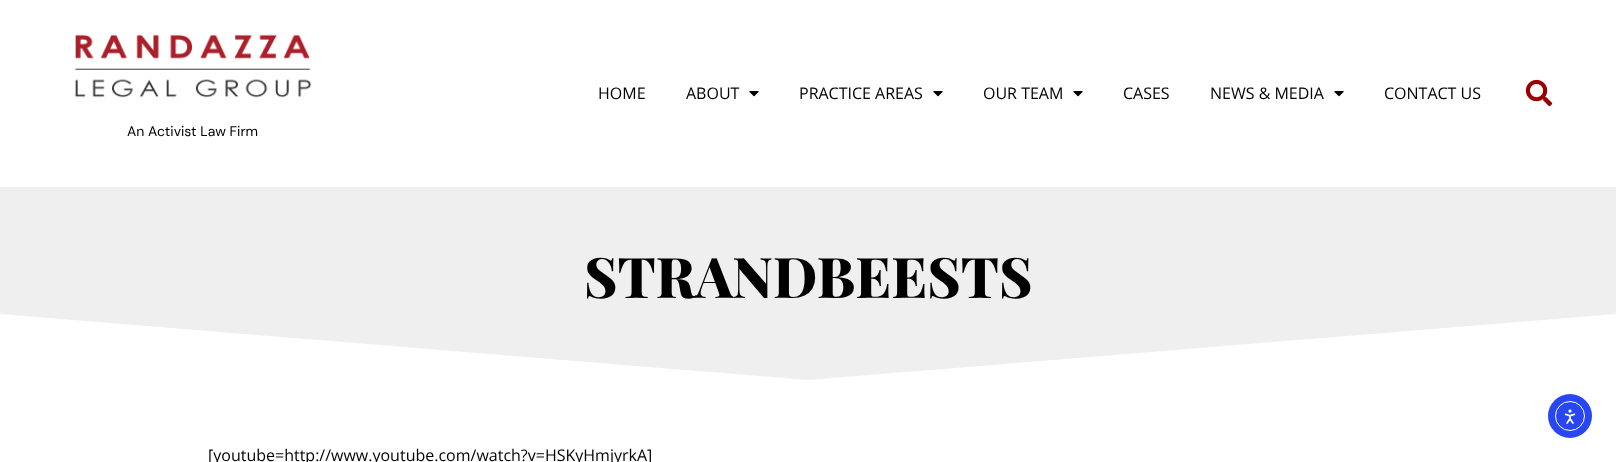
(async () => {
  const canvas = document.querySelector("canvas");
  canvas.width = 1616;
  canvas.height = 462;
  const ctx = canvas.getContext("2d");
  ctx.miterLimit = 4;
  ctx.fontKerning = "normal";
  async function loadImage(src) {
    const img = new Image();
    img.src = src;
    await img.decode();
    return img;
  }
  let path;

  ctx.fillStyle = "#ffffff";
  ctx.fillRect(0, 0, 1616, 462);
  ctx.drawImage(await loadImage("img/1.png"), 749, 91, 10, 6);
  ctx.drawImage(await loadImage("img/1.png"), 933, 91, 10, 6);
  ctx.drawImage(await loadImage("img/1.png"), 1073, 91, 10, 6);
  ctx.drawImage(await loadImage("img/1.png"), 1334, 91, 10, 6);
  ctx.drawImage(await loadImage("img/2.png"), 1525, 79, 28, 28);
  ctx.drawImage(await loadImage("img/3.png"), 75, 34, 237, 64);
  ctx.fillStyle = "#efefef";
  ctx.fillRect(0, 187, 1616, 193);
  ctx.fillStyle = "#ffffff";
  path = new Path2D("M808 380L-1 314V384H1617V314Z");
  ctx.fill(path);
  ctx.fillStyle = "#2847f3";
  ctx.beginPath();
  ctx.arc(1570, 416, 22, 0, Math.PI * 2);
  ctx.fill();
  ctx.beginPath();
  ctx.arc(1570, 416, 14.5, 0, Math.PI * 2);
  ctx.strokeStyle = "#ffffff";
  ctx.stroke();
  ctx.drawImage(await loadImage("img/4.png"), 1564, 409, 12, 15);
  ctx.font = "16px Open Sans";
  ctx.fillStyle = "#000000";
  for (const [text, x, y] of [
    ["HOME", 598, 99],
    ["ABOUT", 686, 99],
    ["PRACTICE AREAS", 799, 99],
    ["OUR TEAM", 983, 99],
    ["CASES", 1123, 99],
    ["NEWS & MEDIA", 1210, 99],
    ["CONTACT US", 1384, 99],
  ]) {
    ctx.fillText(text, x, y);
  }
  ctx.font = "14px DM Sans";
  ctx.fillText("An Activist Law Firm", 127, 136);
  ctx.font = "800 56px Playfair Display";
  ctx.fillText("STRANDBEESTS", 584, 298);
  ctx.font = "16px Open Sans";
  ctx.fillText("[youtube=http://www.youtube.com/watch?v=HSKyHmjyrkA]", 208, 461);
})();
